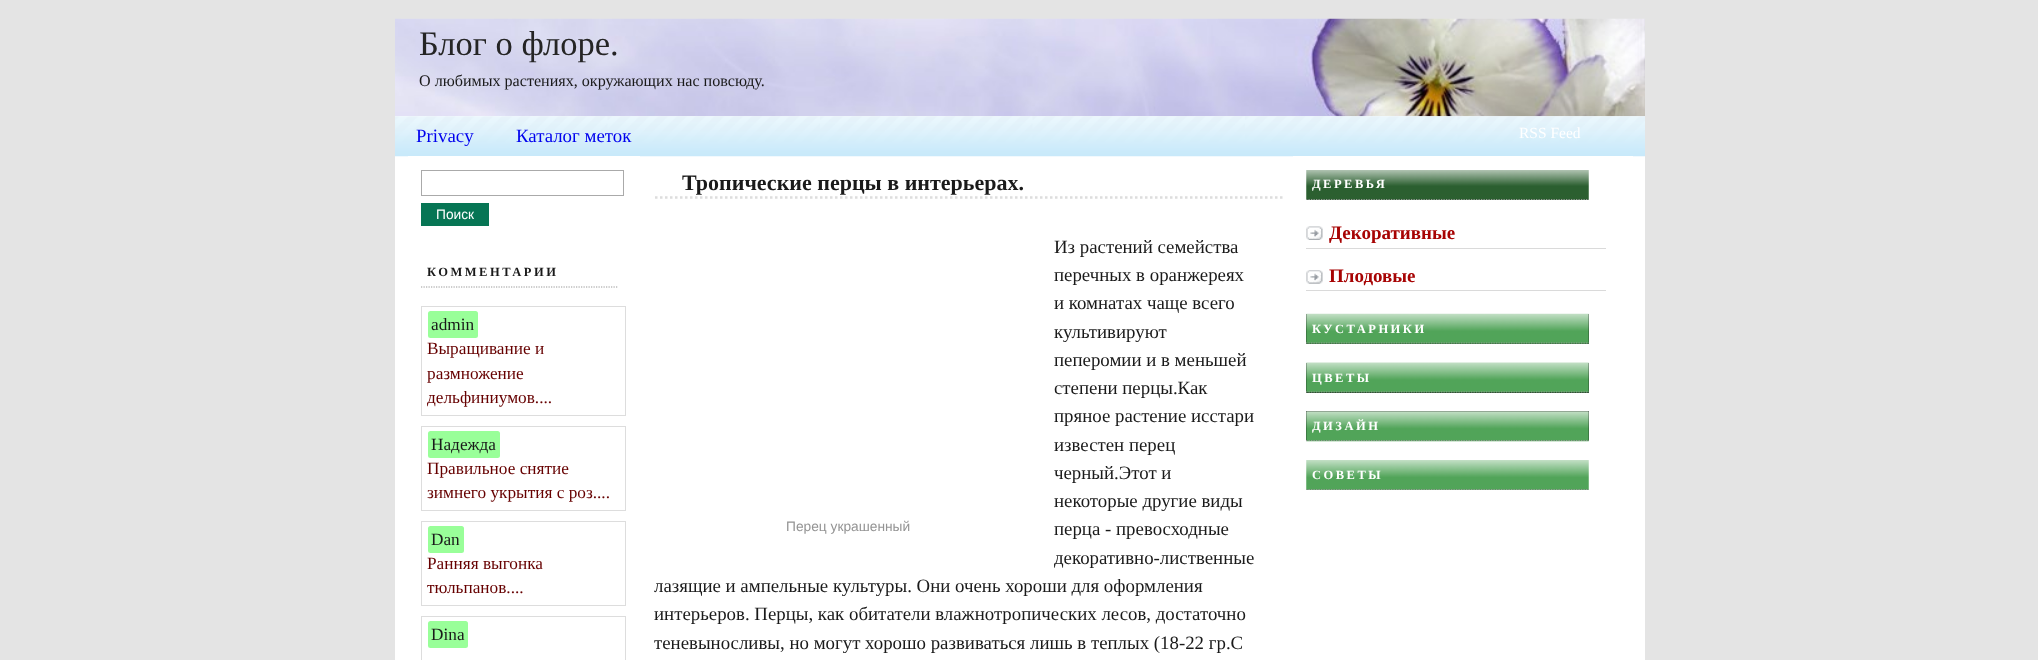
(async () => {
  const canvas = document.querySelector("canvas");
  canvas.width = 2038;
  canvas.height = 660;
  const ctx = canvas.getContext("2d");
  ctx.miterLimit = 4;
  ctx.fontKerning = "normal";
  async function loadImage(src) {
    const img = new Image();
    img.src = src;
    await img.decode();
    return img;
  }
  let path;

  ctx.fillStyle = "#e4e4e4";
  ctx.fillRect(0, 0, 2038, 660);
  ctx.fillStyle = "#ffffff";
  ctx.fillRect(395, 116, 1250, 544);
  ctx.drawImage(await loadImage("img/1.png"), 395, 18, 1250, 99);
  ctx.drawImage(await loadImage("img/2.png"), 395, 116, 1250, 41);
  ctx.strokeStyle = "#ffffff";
  ctx.strokeRect(408.5, 156.5, 231, 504);
  ctx.strokeStyle = "#aaaaaa";
  ctx.strokeRect(421.5, 170.5, 202, 25);
  ctx.fillStyle = "#067554";
  ctx.fillRect(421, 203, 68, 23);
  path = new Path2D("M421 287H617.5");
  ctx.strokeStyle = "#999999";
  ctx.lineWidth = 1.2;
  ctx.setLineDash([1.25, 1.25]);
  ctx.stroke(path);
  ctx.strokeStyle = "#dddddd";
  ctx.lineWidth = 1;
  ctx.setLineDash([]);
  ctx.strokeRect(421.5, 306.5, 204, 109);
  ctx.fillStyle = "#99ff99";
  ctx.beginPath();
  ctx.roundRect(428, 311, 50, 27, 2.5);
  ctx.fill();
  ctx.strokeRect(421.5, 426.5, 204, 84);
  ctx.beginPath();
  ctx.roundRect(428, 431, 72, 27, 2.5);
  ctx.fill();
  ctx.strokeRect(421.5, 521.5, 204, 84);
  ctx.beginPath();
  ctx.roundRect(428, 526, 36, 27, 2.5);
  ctx.fill();
  ctx.strokeRect(421.5, 616.5, 204, 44);
  ctx.beginPath();
  ctx.roundRect(428, 621, 40, 27, 2.5);
  ctx.fill();
  path = new Path2D("M655 197.5H1285");
  ctx.lineWidth = 2.5;
  ctx.setLineDash([2.5, 2.5]);
  ctx.stroke(path);
  ctx.strokeStyle = "#ffffff";
  ctx.lineWidth = 1;
  ctx.setLineDash([]);
  ctx.strokeRect(1293.5, 156.5, 339, 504);
  ctx.drawImage(await loadImage("img/3.png"), 1306, 170, 283, 30);
  path = new Path2D("M1306 199.5H1589");
  ctx.strokeStyle = "#999999";
  ctx.lineWidth = 1.2;
  ctx.setLineDash([1.25, 1.25]);
  ctx.stroke(path);
  ctx.drawImage(await loadImage("img/4.png"), 1306, 226, 17, 14);
  ctx.fillStyle = "#dadada";
  ctx.fillRect(1306, 248, 300, 1);
  ctx.drawImage(await loadImage("img/5.png"), 1306, 270, 17, 14);
  ctx.fillRect(1306, 290, 300, 1);
  ctx.fillStyle = "#000000";
  ctx.fillRect(1306, 314, 283, 30);
  ctx.drawImage(await loadImage("img/6.png"), 1306, 313, 283, 31);
  path = new Path2D("M1306 343H1589");
  ctx.stroke(path);
  ctx.fillRect(1306, 363, 283, 30);
  ctx.drawImage(await loadImage("img/7.png"), 1306, 362, 283, 31);
  path = new Path2D("M1306 392H1589");
  ctx.stroke(path);
  ctx.fillRect(1306, 411, 283, 30);
  ctx.drawImage(await loadImage("img/8.png"), 1306, 411, 283, 31);
  path = new Path2D("M1306 440.5H1589");
  ctx.stroke(path);
  ctx.drawImage(await loadImage("img/9.png"), 1306, 460, 283, 30);
  path = new Path2D("M1306 489.5H1589");
  ctx.stroke(path);
  ctx.font = "34.5px Liberation Serif";
  ctx.fillStyle = "#252525";
  ctx.fillText("Блог о флоре.", 419, 55);
  ctx.font = "16.1px Liberation Serif";
  ctx.fillStyle = "#1a1a1a";
  ctx.fillText("О любимых растениях, окружающих нас повсюду.", 419, 86);
  ctx.font = "18.85px Liberation Serif";
  ctx.fillStyle = "#0000ee";
  ctx.fillText("Privacy", 416, 142);
  ctx.fillText("Каталог меток", 516, 142);
  ctx.font = "15.5px Liberation Serif";
  ctx.fillStyle = "#ffffff";
  ctx.fillText("RSS Feed", 1519, 138);
  ctx.font = "13.75px Liberation Sans";
  ctx.fillText("Поиск", 436, 219);
  ctx.letterSpacing = "2.5px";
  ctx.font = "bold 12.5px Liberation Serif";
  ctx.fillStyle = "#1a1a1a";
  ctx.fillText("КОММЕНТАРИИ", 427, 276);
  ctx.letterSpacing = "0px";
  ctx.font = "17.25px Liberation Serif";
  ctx.fillText("admin", 431, 330);
  ctx.fillStyle = "#660000";
  for (const [text, x, y] of [
    ["Выращивание и", 427, 354],
    ["размножение", 427, 379],
    ["дельфиниумов....", 427, 403],
  ]) {
    ctx.fillText(text, x, y);
  }
  ctx.fillStyle = "#1a1a1a";
  ctx.fillText("Надежда", 431, 450);
  ctx.fillStyle = "#660000";
  ctx.fillText("Правильное снятие", 427, 474);
  ctx.fillText("зимнего укрытия с роз....", 427, 498);
  ctx.fillStyle = "#1a1a1a";
  ctx.fillText("Dan", 431, 545);
  ctx.fillStyle = "#660000";
  ctx.fillText("Ранняя выгонка", 427, 569);
  ctx.fillText("тюльпанов....", 427, 593);
  ctx.fillStyle = "#1a1a1a";
  ctx.fillText("Dina", 431, 640);
  ctx.font = "bold 22px Liberation Serif";
  ctx.fillText("Тропические перцы в интерьерах.", 682, 190);
  ctx.font = "18.85px Liberation Serif";
  for (const [text, x, y] of [
    ["Из растений семейства", 1054, 253],
    ["перечных в оранжереях", 1054, 281],
    ["и комнатах чаще всего", 1054, 309],
    ["культивируют", 1054, 338],
    ["пеперомии и в меньшей", 1054, 366],
    ["степени перцы.Как", 1054, 394],
    ["пряное растение исстари", 1054, 422],
    ["известен перец", 1054, 451],
    ["черный.Этот и", 1054, 479],
    ["некоторые другие виды", 1054, 507],
  ]) {
    ctx.fillText(text, x, y);
  }
  ctx.font = "13.75px Liberation Sans";
  ctx.fillStyle = "#949494";
  ctx.fillText("Перец украшенный", 786, 531);
  ctx.font = "18.85px Liberation Serif";
  ctx.fillStyle = "#1a1a1a";
  for (const [text, x, y] of [
    ["перца - превосходные", 1054, 535],
    ["декоративно-лиственные", 1054, 564],
    ["лазящие и ампельные культуры. Они очень хороши для оформления", 654, 592],
    ["интерьеров. Перцы, как обитатели влажнотропических лесов, достаточно", 654, 620],
    ["теневыносливы, но могут хорошо развиваться лишь в теплых (18-22 гр.С", 654, 649],
  ]) {
    ctx.fillText(text, x, y);
  }
  ctx.letterSpacing = "2.5px";
  ctx.font = "bold 12.5px Liberation Serif";
  ctx.fillStyle = "#ffffff";
  ctx.fillText("ДЕРЕВЬЯ", 1312, 188);
  ctx.letterSpacing = "0px";
  ctx.font = "bold 19px Liberation Serif";
  ctx.fillStyle = "#a70303";
  ctx.fillText("Декоративные", 1329, 239);
  ctx.fillText("Плодовые", 1329, 282);
  ctx.letterSpacing = "2.5px";
  ctx.font = "bold 12.5px Liberation Serif";
  ctx.fillStyle = "#ffffff";
  for (const [text, x, y] of [
    ["КУСТАРНИКИ", 1312, 333],
    ["ЦВЕТЫ", 1312, 382],
    ["ДИЗАЙН", 1312, 430],
    ["СОВЕТЫ", 1312, 479],
  ]) {
    ctx.fillText(text, x, y);
  }
})();
